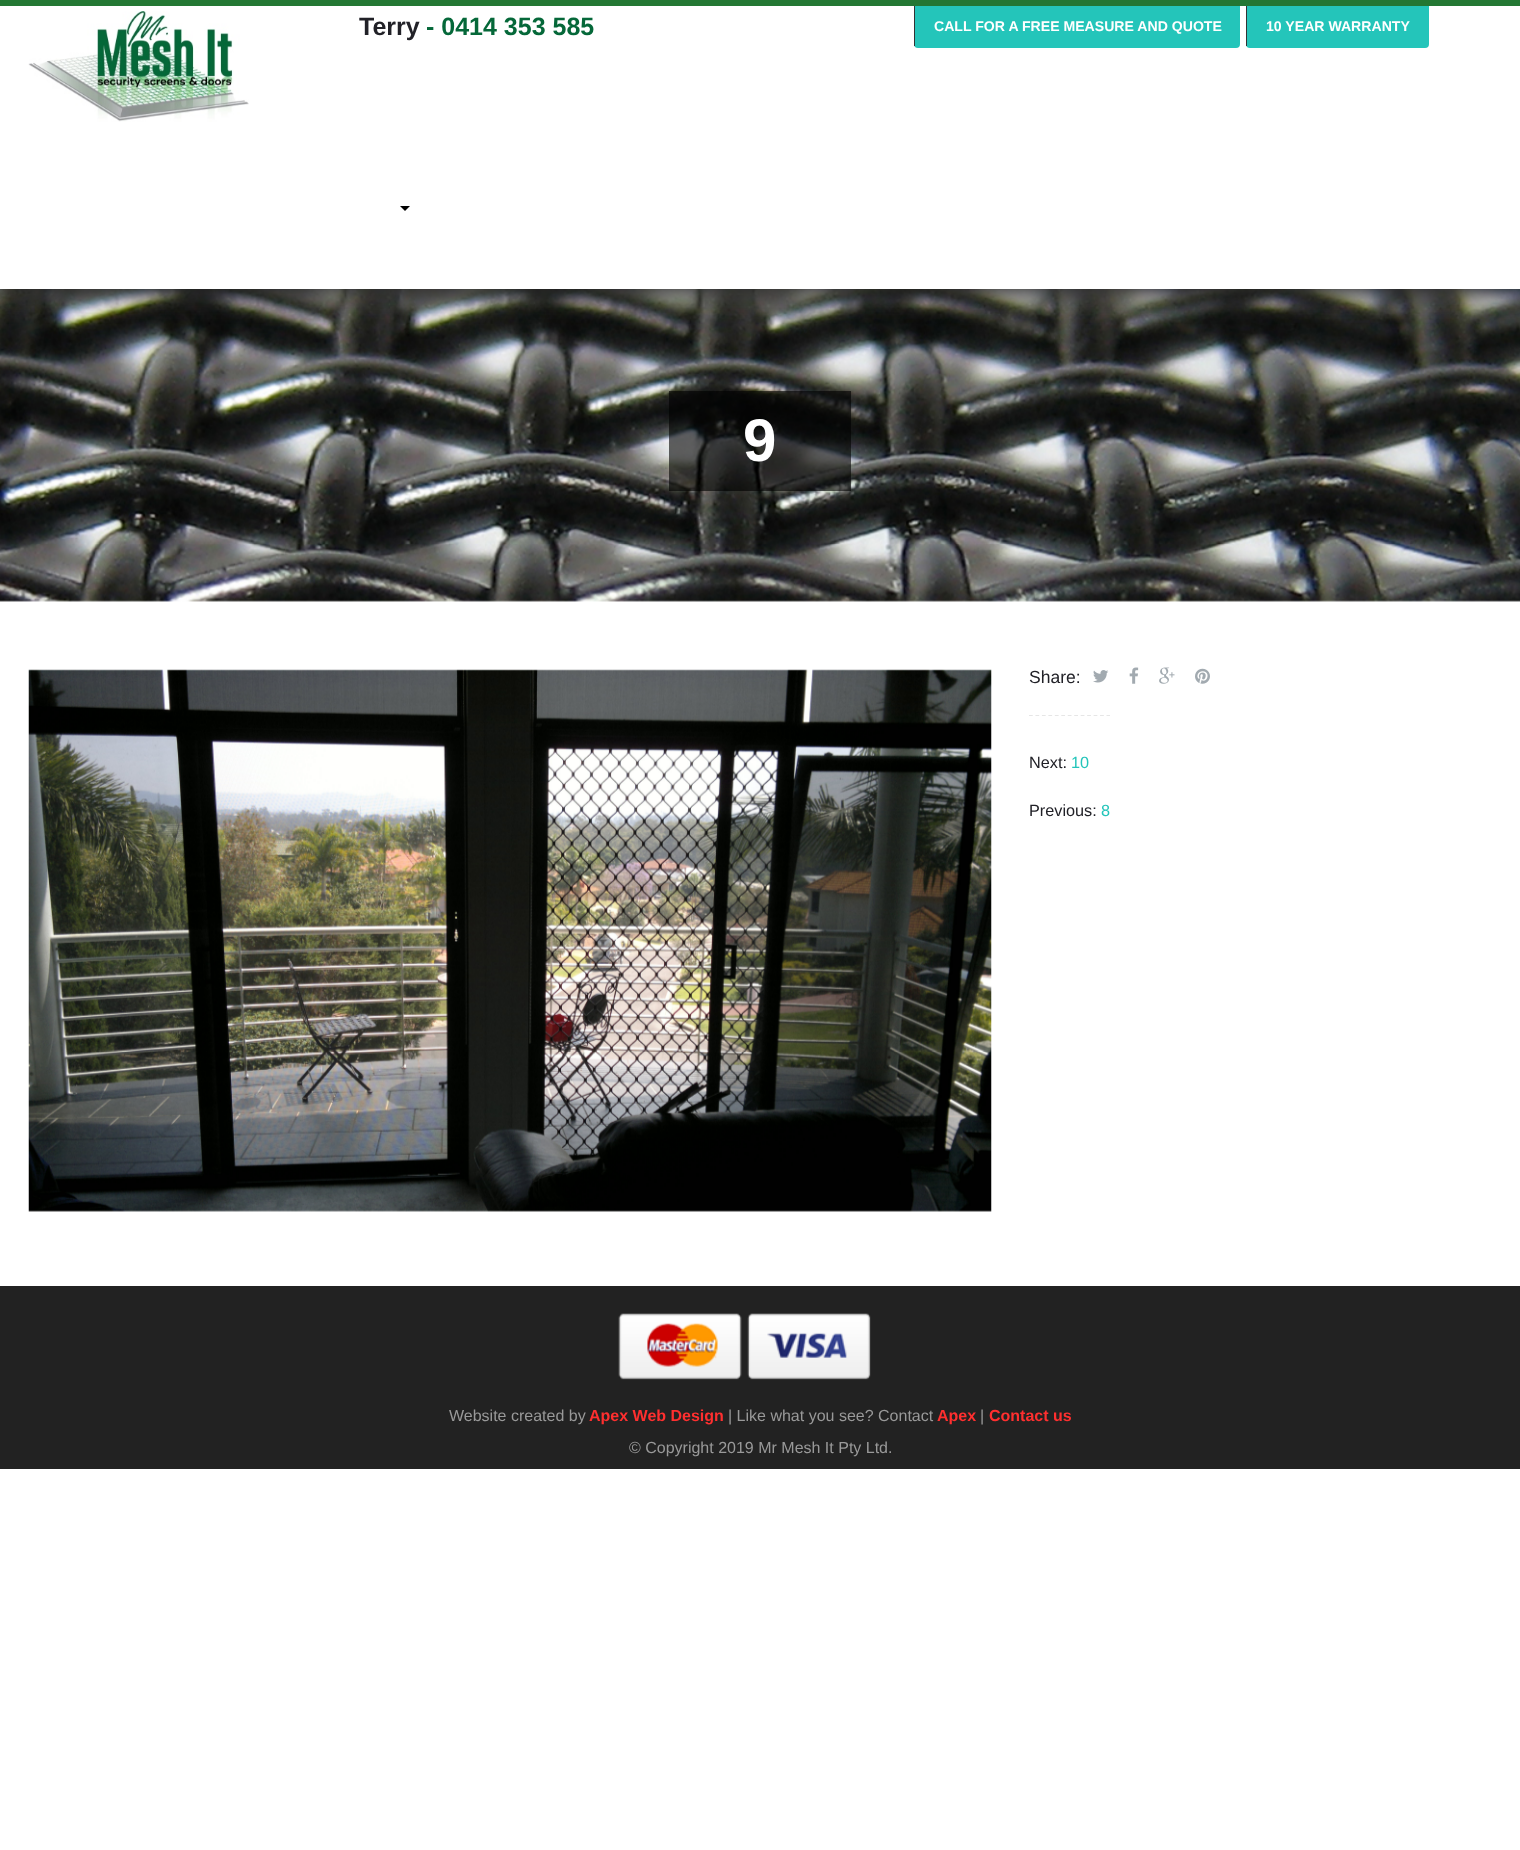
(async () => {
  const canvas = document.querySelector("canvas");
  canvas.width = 1520;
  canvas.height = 1850;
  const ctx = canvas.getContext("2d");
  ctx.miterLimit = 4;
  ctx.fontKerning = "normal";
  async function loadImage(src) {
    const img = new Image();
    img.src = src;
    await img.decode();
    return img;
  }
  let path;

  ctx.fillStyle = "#ffffff";
  ctx.fillRect(0, 0, 1520, 1850);
  ctx.drawImage(await loadImage("img/2.png"), 0, 289, 1520, 313);
  ctx.fillStyle = "#222222";
  ctx.filter = "blur(12.5px)";
  ctx.beginPath();
  ctx.rect(-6, -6, 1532, 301);
  ctx.fill();
  ctx.filter = "none";
  ctx.fillStyle = "#ffffff";
  ctx.fillRect(0, 6, 1520, 283);
  ctx.fillStyle = "#237733";
  ctx.fillRect(0, 0, 1520, 6);
  ctx.drawImage(await loadImage("img/1.png"), 28, 11, 221, 111);
  ctx.fillStyle = "#24c5ba";
  ctx.beginPath();
  ctx.roundRect(914, 6, 326, 42, [0, 0, 4, 4]);
  ctx.fill();
  ctx.fillStyle = "#333333";
  ctx.fillRect(914, 6, 1, 40);
  ctx.fillStyle = "#24c5ba";
  ctx.beginPath();
  ctx.roundRect(1246, 6, 183, 42, [0, 0, 4, 4]);
  ctx.fill();
  ctx.fillStyle = "#333333";
  ctx.fillRect(1246, 6, 1, 40);
  ctx.fillStyle = "#000000";
  path = new Path2D("M400 206H410L405 211Z");
  ctx.fill(path);
  ctx.fillStyle = "rgba(0, 0, 0, 0.6)";
  ctx.fillRect(669, 391, 182, 100);
  ctx.drawImage(await loadImage("img/3.png"), 28, 669, 964, 543);
  ctx.drawImage(await loadImage("img/4.png"), 1093, 670, 16, 13);
  ctx.drawImage(await loadImage("img/5.png"), 1129, 667, 10, 17);
  ctx.drawImage(await loadImage("img/6.png"), 1159, 667, 16, 17);
  ctx.drawImage(await loadImage("img/7.png"), 1195, 668, 15, 16);
  path = new Path2D("M1029 715.5H1110");
  ctx.strokeStyle = "#e6e6e6";
  ctx.lineWidth = 1.2;
  ctx.setLineDash([3.75, 2.71]);
  ctx.stroke(path);
  ctx.fillStyle = "#222222";
  ctx.fillRect(0, 1286, 1520, 183);
  ctx.drawImage(await loadImage("img/8.png"), 618, 1313, 253, 67);
  ctx.font = "bold 25px Liberation Sans";
  ctx.fillStyle = "#212127";
  ctx.fillText("Terry", 359, 35);
  ctx.fillStyle = "#056839";
  ctx.fillText("- 0414 353 585", 426, 35);
  ctx.font = "bold 14.1px Liberation Sans";
  ctx.fillStyle = "#ffffff";
  ctx.fillText("CALL FOR A FREE MEASURE AND QUOTE", 934, 31);
  ctx.fillText("10 YEAR WARRANTY", 1266, 31);
  ctx.font = "bold 60px Liberation Sans";
  ctx.fillText("9", 743, 461);
  ctx.font = "17.5px Liberation Sans";
  ctx.fillStyle = "#212127";
  ctx.fillText("Share:", 1029, 683);
  ctx.font = "16.25px Liberation Sans";
  ctx.fillText("Next:", 1029, 768);
  ctx.fillStyle = "#24c5ba";
  ctx.fillText("10", 1071, 768);
  ctx.fillStyle = "#212127";
  ctx.fillText("Previous:", 1029, 816);
  ctx.fillStyle = "#24c5ba";
  ctx.fillText("8", 1101, 816);
  ctx.font = "16px Liberation Sans";
  ctx.fillStyle = "#999999";
  ctx.fillText("Website created by", 449, 1421);
  ctx.font = "bold 16px Liberation Sans";
  ctx.fillStyle = "#ff2f2f";
  ctx.fillText("Apex Web Design", 589, 1421);
  ctx.font = "16px Liberation Sans";
  ctx.fillStyle = "#999999";
  ctx.fillText("| Like what you see? Contact", 728, 1421);
  ctx.font = "bold 16px Liberation Sans";
  ctx.fillStyle = "#ff2f2f";
  ctx.fillText("Apex", 937, 1421);
  ctx.font = "16px Liberation Sans";
  ctx.fillStyle = "#999999";
  ctx.fillText("|", 980, 1421);
  ctx.font = "bold 16px Liberation Sans";
  ctx.fillStyle = "#ff2f2f";
  ctx.fillText("Contact us", 989, 1421);
  ctx.font = "16px Liberation Sans";
  ctx.fillStyle = "#999999";
  ctx.fillText("© Copyright 2019 Mr Mesh It Pty Ltd.", 629, 1453);
})();
